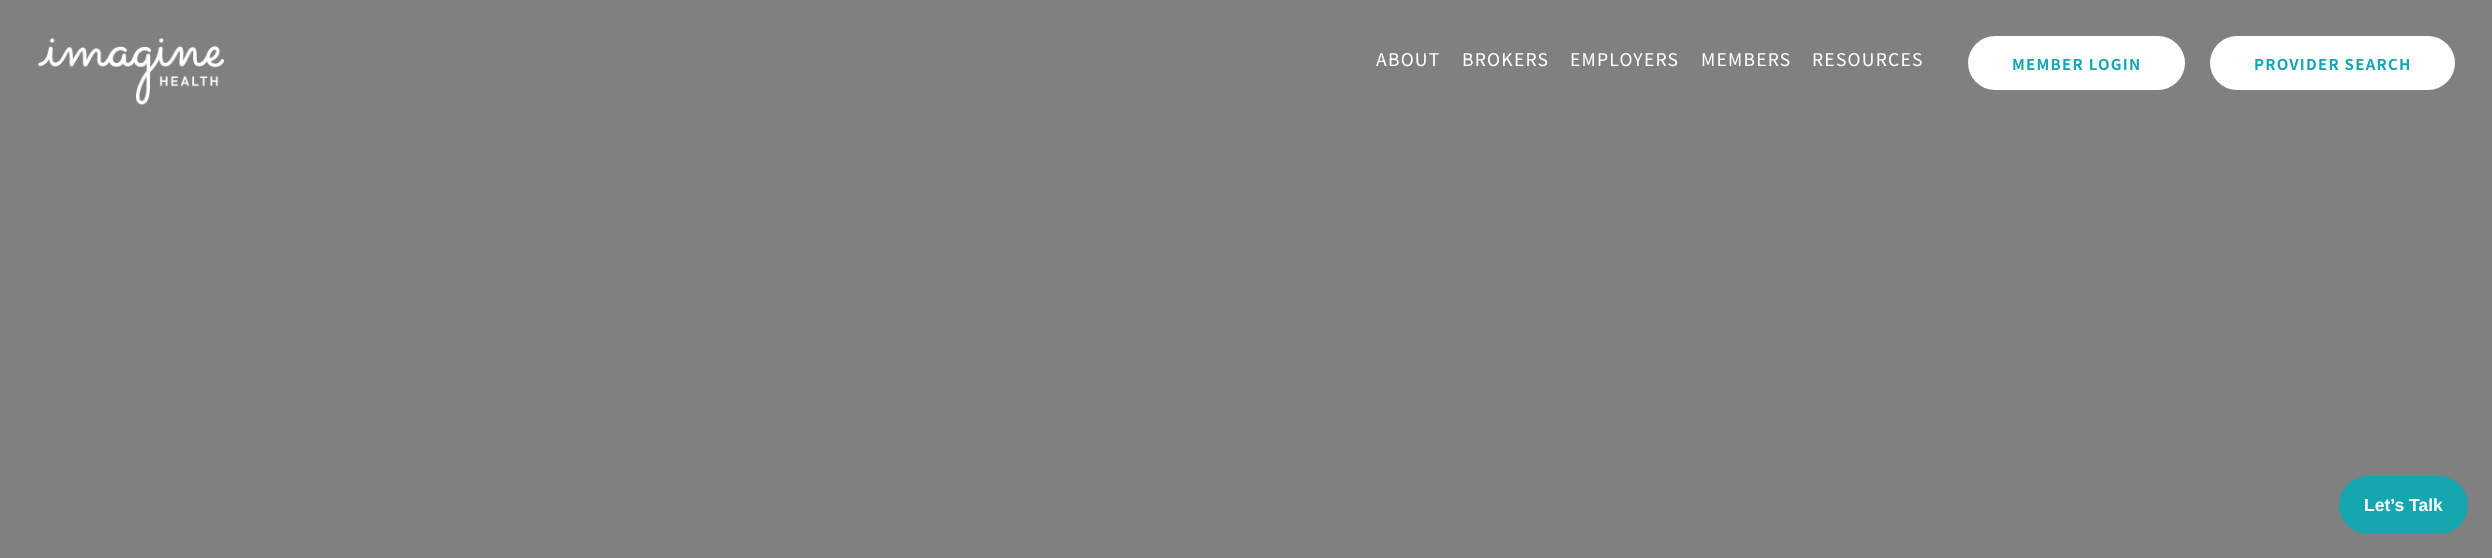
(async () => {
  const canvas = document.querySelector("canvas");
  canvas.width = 2492;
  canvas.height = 558;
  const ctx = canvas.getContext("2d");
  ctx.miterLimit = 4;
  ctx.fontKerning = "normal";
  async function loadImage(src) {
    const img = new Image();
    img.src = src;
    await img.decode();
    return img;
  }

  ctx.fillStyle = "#808080";
  ctx.fillRect(0, 0, 2492, 558);
  ctx.drawImage(await loadImage("img/1.png"), 38, 38, 187, 67);
  ctx.fillStyle = "#ffffff";
  ctx.beginPath();
  ctx.roundRect(1968, 36, 217, 54, 27);
  ctx.fill();
  ctx.beginPath();
  ctx.roundRect(2210, 36, 245, 54, 27);
  ctx.fill();
  ctx.fillStyle = "#15a6b0";
  ctx.beginPath();
  ctx.roundRect(2339, 476, 129, 58, 29);
  ctx.fill();
  ctx.letterSpacing = "1.25px";
  ctx.font = "17.5px Noto Sans JP";
  ctx.fillStyle = "#ffffff";
  for (const [text, x, y] of [
    ["ABOUT", 1376, 66],
    ["BROKERS", 1462, 66],
    ["EMPLOYERS", 1570, 66],
    ["MEMBERS", 1701, 66],
    ["RESOURCES", 1812, 66],
  ]) {
    ctx.fillText(text, x, y);
  }
  ctx.font = "bold 15px Noto Sans JP";
  ctx.fillStyle = "#15a6b0";
  ctx.fillText("MEMBER LOGIN", 2012, 70);
  ctx.fillText("PROVIDER SEARCH", 2254, 70);
  ctx.letterSpacing = "0px";
  ctx.font = "bold 17.5px Liberation Sans";
  ctx.fillStyle = "#ffffff";
  ctx.fillText("Let’s Talk", 2364, 511);
})();
